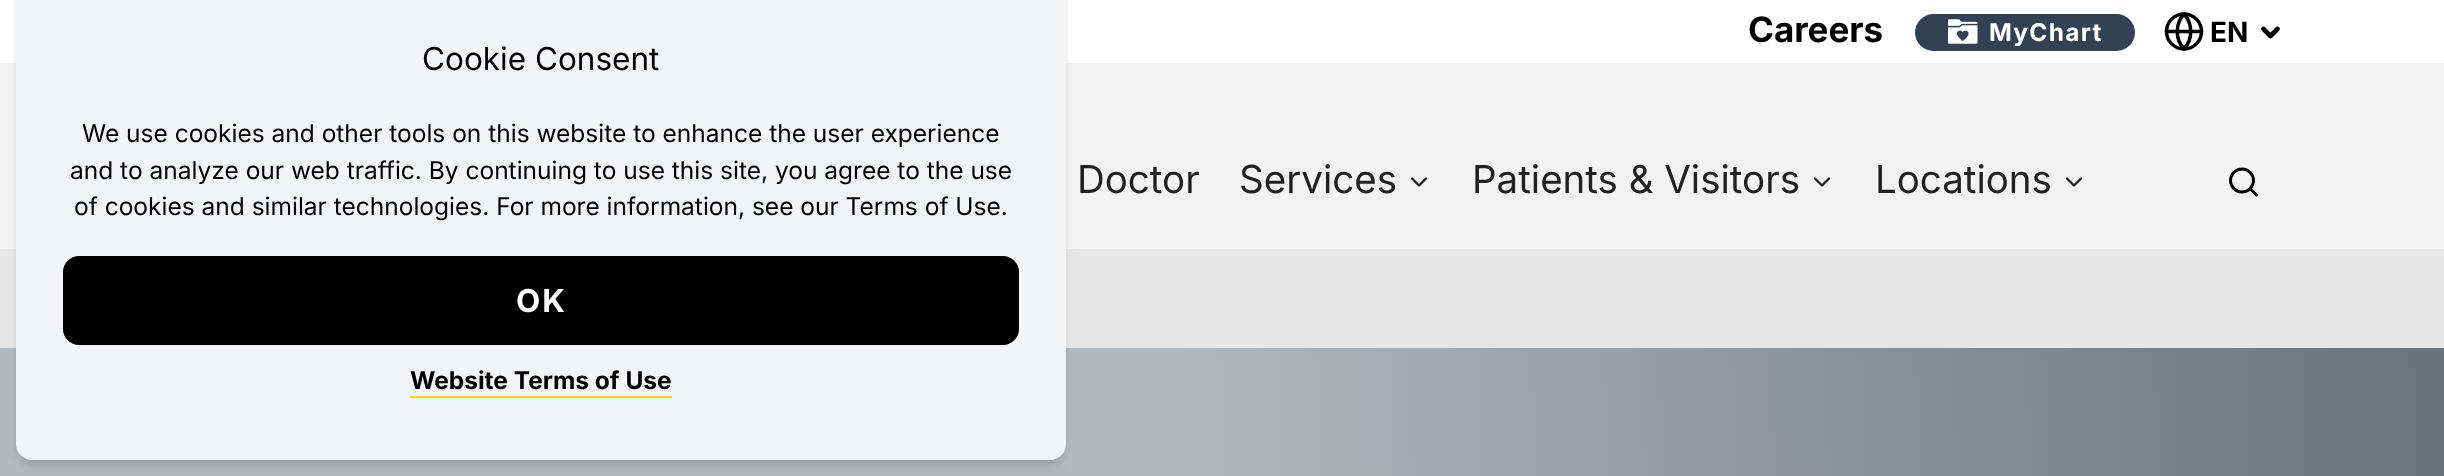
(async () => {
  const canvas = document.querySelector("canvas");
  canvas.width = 2444;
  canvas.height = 476;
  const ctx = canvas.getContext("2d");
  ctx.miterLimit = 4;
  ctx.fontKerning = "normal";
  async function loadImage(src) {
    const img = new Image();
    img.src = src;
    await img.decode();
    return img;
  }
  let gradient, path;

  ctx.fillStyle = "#e6e6e6";
  ctx.fillRect(0, 0, 2444, 476);
  ctx.fillStyle = "#f2f2f2";
  ctx.fillRect(0, 63, 2444, 186);
  ctx.fillStyle = "#ffffff";
  ctx.fillRect(0, 0, 2444, 63);
  gradient = ctx.createLinearGradient(-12, 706, 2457, 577);
  gradient.addColorStop(0.47, "#b6b9bc");
  gradient.addColorStop(0.99, "#6d7379");
  ctx.fillStyle = gradient;
  ctx.fillRect(0, 348, 2444, 128);
  ctx.fillStyle = "rgba(0, 0, 0, 0.1)";
  ctx.filter = "blur(3.5px)";
  ctx.beginPath();
  ctx.roundRect(19, -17, 1043, 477, 12);
  ctx.fill();
  ctx.filter = "none";
  ctx.filter = "blur(5px)";
  ctx.beginPath();
  ctx.roundRect(18, -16, 1046, 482, 14);
  ctx.fill();
  ctx.filter = "none";
  ctx.fillStyle = "#f3f4f6";
  ctx.beginPath();
  ctx.roundRect(16, -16, 1050, 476, 16);
  ctx.fill();
  ctx.fillStyle = "#000000";
  ctx.beginPath();
  ctx.roundRect(63, 256, 956, 89, 16);
  ctx.fill();
  ctx.fillStyle = "#f2d700";
  ctx.fillRect(410, 396, 262, 2);
  ctx.fillStyle = "#334154";
  ctx.beginPath();
  ctx.roundRect(1915, 14, 220, 37, 18.5);
  ctx.fill();
  ctx.drawImage(await loadImage("img/1.png"), 1948, 19, 30, 25);
  ctx.beginPath();
  ctx.arc(2184, 31.5, 17.5, 0, Math.PI * 2);
  ctx.strokeStyle = "#000000";
  ctx.lineWidth = 3.5;
  ctx.stroke();
  path = new Path2D("M2166.5 31.5H2201.5M2184 14C2193 24 2193 39 2184 49C2175 39 2175 24 2184 14Z");
  ctx.lineCap = "round";
  ctx.lineJoin = "round";
  ctx.stroke(path);
  path = new Path2D("M2263.5 29L2270.5 36L2277.5 29");
  ctx.lineWidth = 4.7;
  ctx.stroke(path);
  path = new Path2D("M1412 178.5L1419 185.5L1426 178.5");
  ctx.strokeStyle = "#212121";
  ctx.lineWidth = 2.3;
  ctx.stroke(path);
  path = new Path2D("M1815 178.5L1822 185.5L1829 178.5");
  ctx.stroke(path);
  path = new Path2D("M2067 178.5L2074 185.5L2081 178.5");
  ctx.stroke(path);
  ctx.beginPath();
  ctx.arc(2242, 180.5, 11.5, 0, Math.PI * 2);
  ctx.strokeStyle = "#000000";
  ctx.lineWidth = 2.9;
  ctx.stroke();
  path = new Path2D("M2256.5 195L2250.5 189");
  ctx.stroke(path);
  ctx.font = "31.5px Inter";
  ctx.fillStyle = "#000000";
  ctx.fillText("Cookie Consent", 422, 70);
  ctx.font = "24.5px Inter";
  for (const [text, x, y] of [
    ["We use cookies and other tools on this website to enhance the user experience", 82, 142],
    ["and to analyze our web traffic. By continuing to use this site, you agree to the use", 70, 179],
    ["of cookies and similar technologies. For more information, see our Terms of Use.", 74, 215],
  ]) {
    ctx.fillText(text, x, y);
  }
  ctx.letterSpacing = "2px";
  ctx.font = "bold 31.5px Inter";
  ctx.fillStyle = "#ffffff";
  ctx.fillText("OK", 516, 312);
  ctx.letterSpacing = "0px";
  ctx.font = "bold 24.5px Inter";
  ctx.fillStyle = "#000000";
  ctx.fillText("Website Terms of Use", 410, 389);
  ctx.font = "bold 35px Inter";
  ctx.fillText("Careers", 1748, 42);
  ctx.letterSpacing = "1.25px";
  ctx.font = "bold 24.5px Inter";
  ctx.fillStyle = "#ffffff";
  ctx.fillText("MyChart", 1989, 41);
  ctx.letterSpacing = "0px";
  ctx.font = "bold 28px Inter";
  ctx.fillStyle = "#000000";
  ctx.fillText("EN", 2210, 42);
  ctx.font = "38.5px Inter";
  ctx.fillStyle = "#212121";
  for (const [text, x, y] of [
    ["Doctor", 1077, 193],
    ["Services", 1239, 193],
    ["Patients & Visitors", 1472, 193],
    ["Locations", 1875, 193],
  ]) {
    ctx.fillText(text, x, y);
  }
})();
